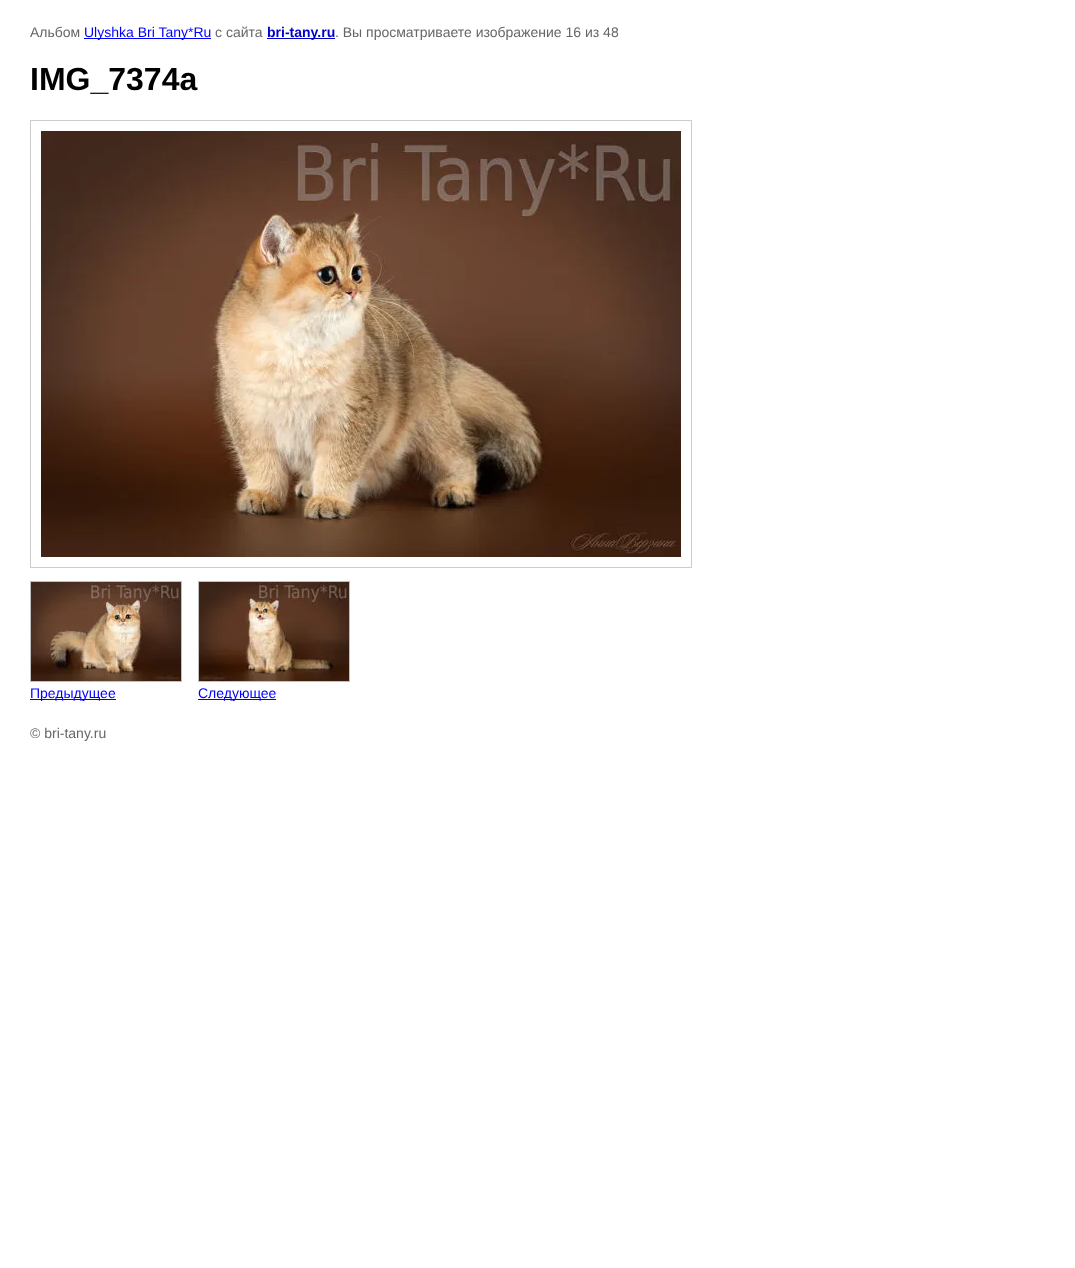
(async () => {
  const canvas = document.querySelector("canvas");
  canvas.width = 1075;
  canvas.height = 1268;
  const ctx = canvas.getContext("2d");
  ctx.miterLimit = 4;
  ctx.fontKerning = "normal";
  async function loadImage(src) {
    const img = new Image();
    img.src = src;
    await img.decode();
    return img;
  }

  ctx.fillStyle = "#ffffff";
  ctx.fillRect(0, 0, 1075, 1268);
  ctx.fillStyle = "#0000ff";
  ctx.fillRect(84, 38, 127, 1);
  ctx.fillStyle = "#0000cc";
  ctx.fillRect(267, 38, 68, 1);
  ctx.strokeStyle = "#cccccc";
  ctx.strokeRect(30.5, 120.5, 661, 447);
  ctx.drawImage(await loadImage("img/1.png"), 41, 131, 640, 426);
  ctx.strokeStyle = "#c0c0c0";
  ctx.strokeRect(30.5, 581.5, 151, 100);
  ctx.drawImage(await loadImage("img/2.png"), 31, 582, 150, 99);
  ctx.fillStyle = "#0000ff";
  ctx.fillRect(30, 699, 86, 1);
  ctx.strokeRect(198.5, 581.5, 151, 100);
  ctx.drawImage(await loadImage("img/3.png"), 199, 582, 150, 99);
  ctx.fillRect(198, 699, 78, 1);
  ctx.font = "14px Liberation Sans";
  ctx.fillStyle = "#666666";
  ctx.fillText("Альбом", 30, 37);
  ctx.fillStyle = "#0000ff";
  ctx.fillText("Ulyshka Bri Tany*Ru", 84, 37);
  ctx.fillStyle = "#666666";
  ctx.fillText("с сайта", 215, 37);
  ctx.font = "bold 14px Liberation Sans";
  ctx.fillStyle = "#0000cc";
  ctx.fillText("bri-tany.ru", 267, 37);
  ctx.font = "14px Liberation Sans";
  ctx.fillStyle = "#666666";
  ctx.fillText(". Вы просматриваете изображение 16 из 48", 335, 37);
  ctx.font = "bold 32px Liberation Sans";
  ctx.fillStyle = "#000000";
  ctx.fillText("IMG_7374a", 30, 90);
  ctx.font = "14px Liberation Sans";
  ctx.fillStyle = "#0000ff";
  ctx.fillText("Предыдущее", 30, 698);
  ctx.fillText("Следующее", 198, 698);
  ctx.fillStyle = "#666666";
  ctx.fillText("© bri-tany.ru", 30, 738);
})();
